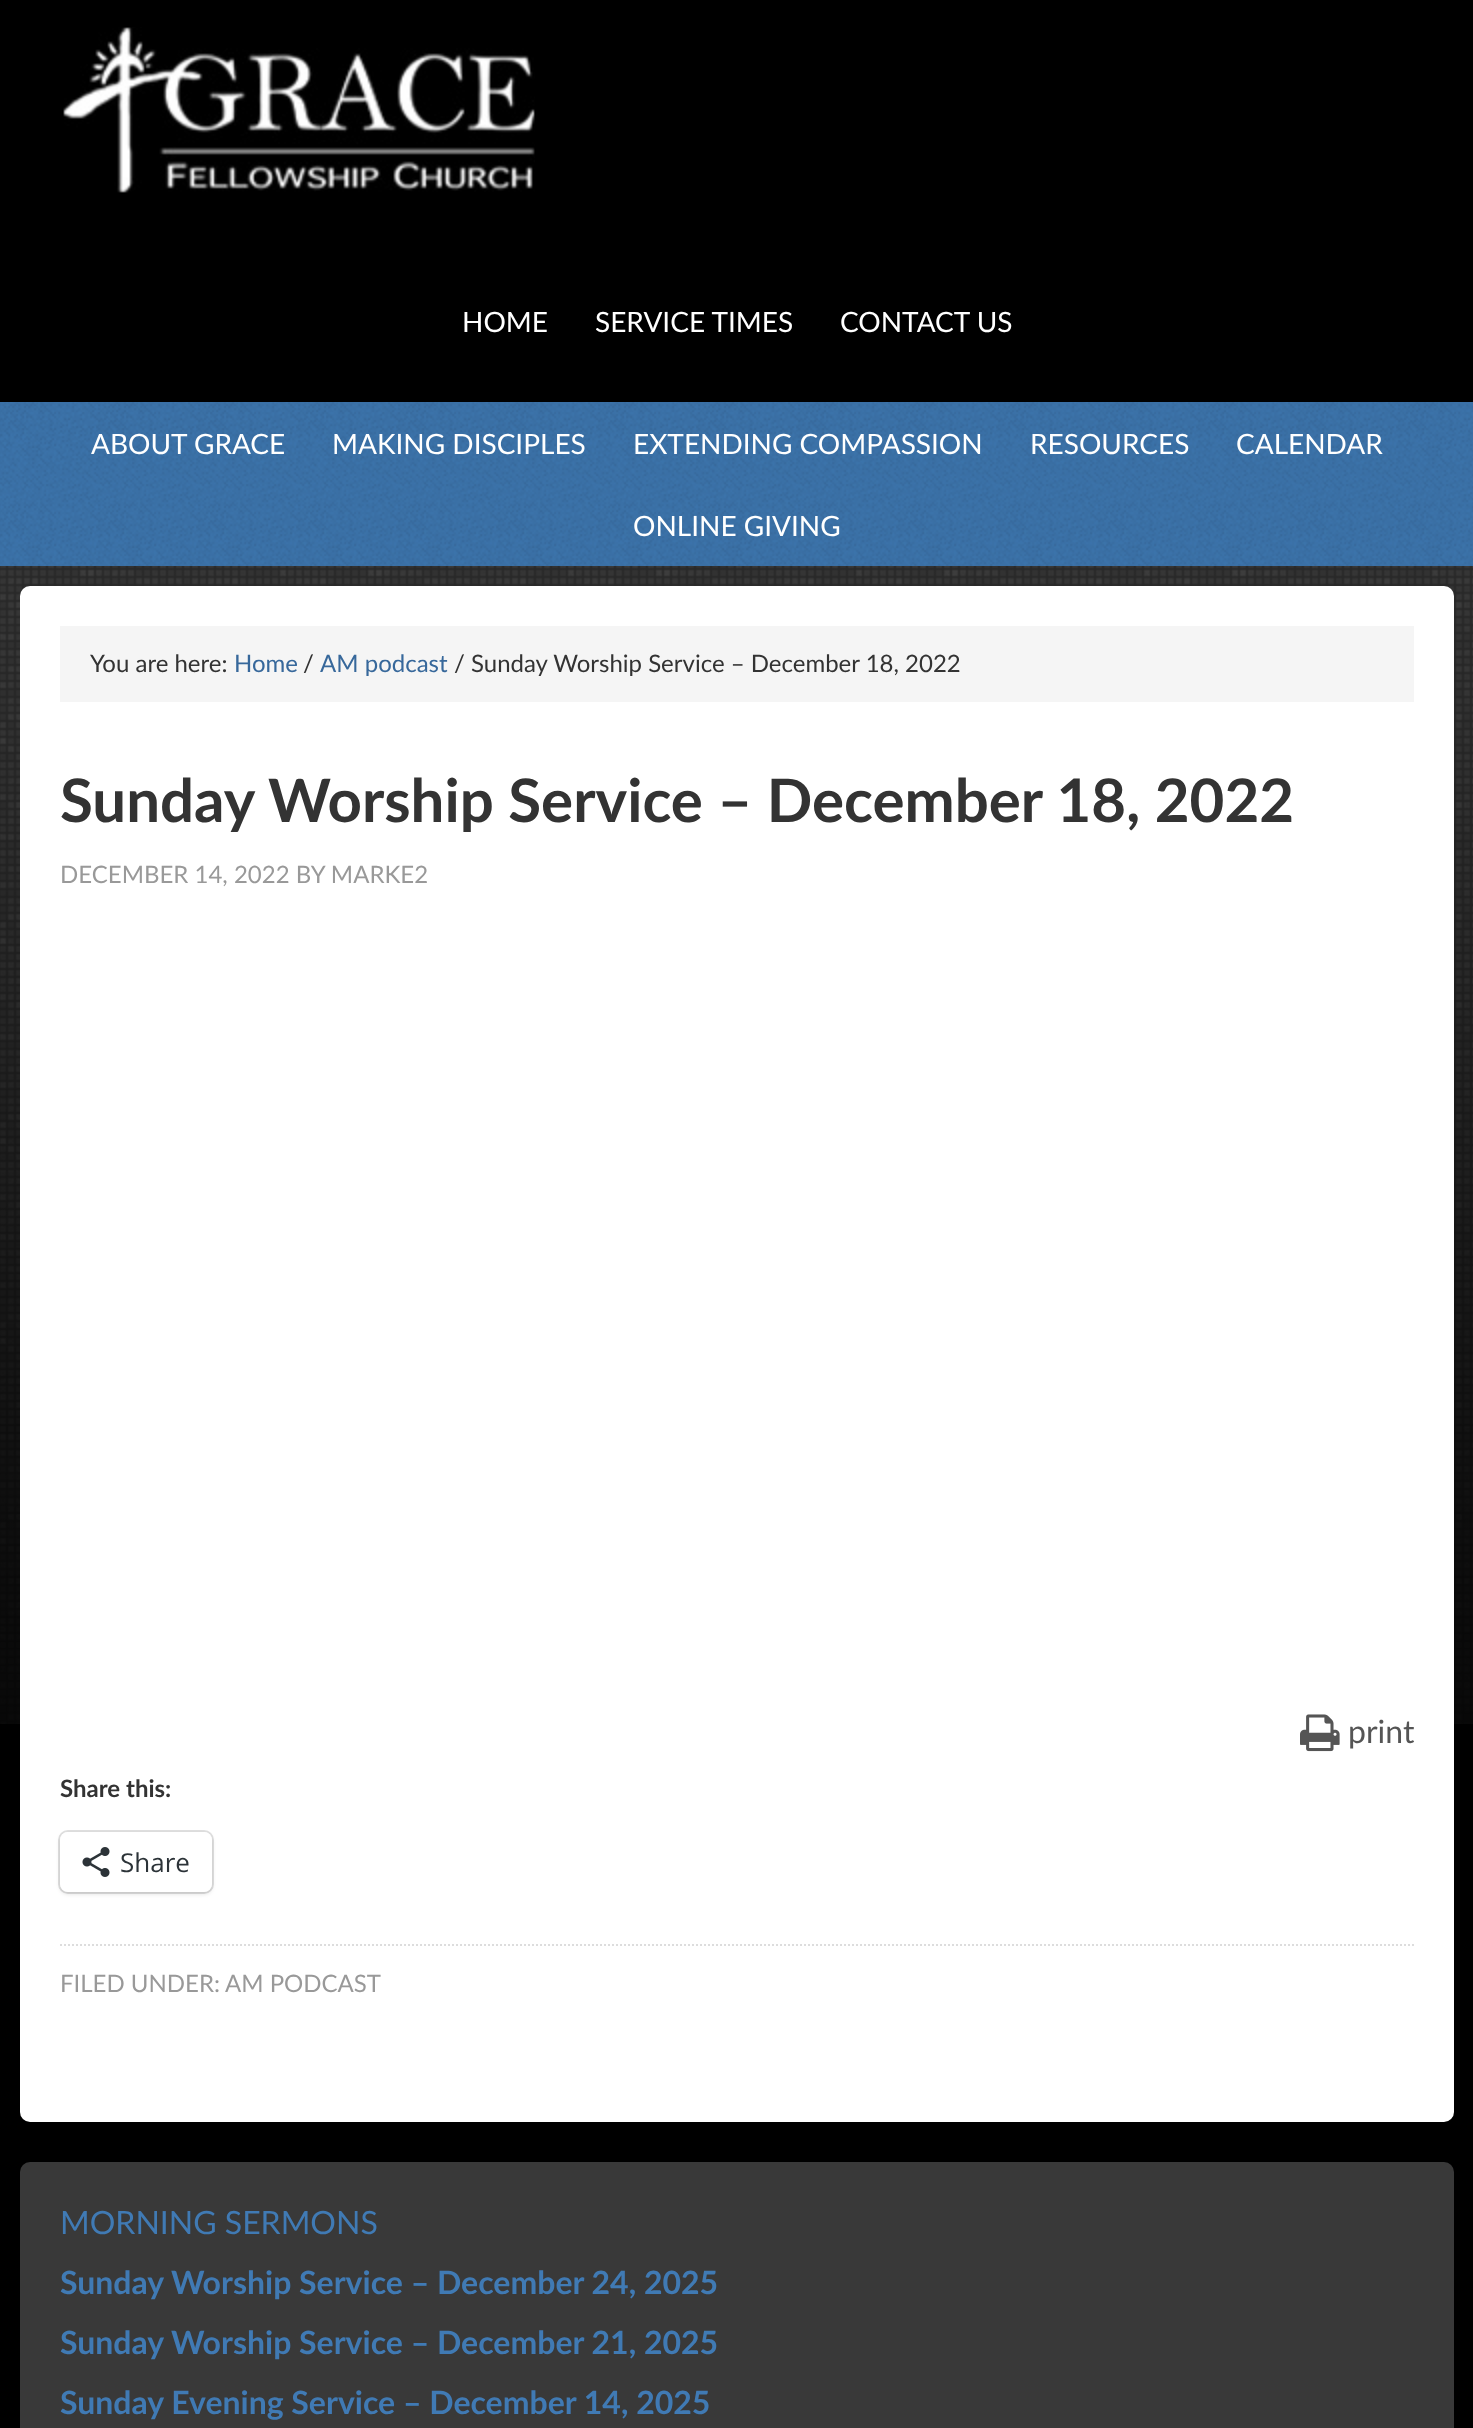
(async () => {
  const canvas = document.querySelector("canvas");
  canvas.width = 1473;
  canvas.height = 2428;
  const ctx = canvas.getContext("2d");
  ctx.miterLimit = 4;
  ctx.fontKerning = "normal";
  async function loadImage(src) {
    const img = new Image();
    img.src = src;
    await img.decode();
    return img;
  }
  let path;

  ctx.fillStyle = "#000000";
  ctx.fillRect(0, 0, 1473, 2428);
  ctx.drawImage(await loadImage("img/1.png"), 63, 27, 472, 166);
  ctx.drawImage(await loadImage("img/2.png"), 0, 402, 1473, 164);
  ctx.drawImage(await loadImage("img/3.png"), 0, 566, 1473, 1158);
  ctx.fillStyle = "#ffffff";
  ctx.beginPath();
  ctx.roundRect(20, 586, 1434, 1536, 10);
  ctx.fill();
  ctx.fillStyle = "#f5f5f5";
  ctx.fillRect(60, 626, 1354, 76);
  ctx.drawImage(await loadImage("img/4.png"), 1300, 1714, 40, 38);
  ctx.beginPath();
  ctx.roundRect(59, 1831, 154, 62, 9);
  ctx.strokeStyle = "#e0e0e0";
  ctx.lineWidth = 2;
  ctx.stroke();
  ctx.fillStyle = "rgba(0, 0, 0, 0.12)";
  ctx.filter = "blur(2px)";
  ctx.beginPath();
  ctx.roundRect(60, 1834, 152, 60, 8);
  ctx.fill();
  ctx.filter = "none";
  ctx.fillStyle = "#ffffff";
  ctx.beginPath();
  ctx.roundRect(60, 1832, 152, 60, 8);
  ctx.fill();
  ctx.drawImage(await loadImage("img/5.png"), 82, 1847, 28, 30);
  path = new Path2D("M60 1945H1414");
  ctx.strokeStyle = "#dddddd";
  ctx.setLineDash([2, 2]);
  ctx.stroke(path);
  ctx.fillStyle = "#393939";
  ctx.beginPath();
  ctx.roundRect(20, 2162, 1434, 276, 10);
  ctx.fill();
  ctx.font = "28px Lato";
  ctx.fillStyle = "#ffffff";
  for (const [text, x, y] of [
    ["HOME", 462, 332],
    ["SERVICE TIMES", 595, 332],
    ["CONTACT US", 840, 332],
    ["ABOUT GRACE", 91, 454],
    ["MAKING DISCIPLES", 332, 454],
    ["EXTENDING COMPASSION", 633, 454],
    ["RESOURCES", 1030, 454],
    ["CALENDAR", 1236, 454],
    ["ONLINE GIVING", 633, 536],
  ]) {
    ctx.fillText(text, x, y);
  }
  ctx.font = "24px Lato";
  ctx.fillStyle = "#333333";
  ctx.fillText("You are here:", 90, 672);
  ctx.fillStyle = "#37689b";
  ctx.fillText("Home", 234, 672);
  ctx.fillStyle = "#333333";
  ctx.fillText("/", 303, 672);
  ctx.fillStyle = "#37689b";
  ctx.fillText("AM podcast", 320, 672);
  ctx.fillStyle = "#333333";
  ctx.fillText("/ Sunday Worship Service – December 18, 2022", 454, 672);
  ctx.font = "bold 60px Lato";
  ctx.fillText("Sunday Worship Service – December 18, 2022", 60, 822);
  ctx.font = "24px Lato";
  ctx.fillStyle = "#999999";
  ctx.fillText("DECEMBER 14, 2022 BY MARKE2", 60, 883);
  ctx.font = "32px Lato";
  ctx.fillStyle = "#555555";
  ctx.fillText("print", 1348, 1743);
  ctx.font = "bold 24px Lato";
  ctx.fillStyle = "#333333";
  ctx.fillText("Share this:", 60, 1797);
  ctx.font = "26px Open Sans";
  ctx.fillStyle = "#2c3338";
  ctx.fillText("Share", 120, 1872);
  ctx.font = "24px Lato";
  ctx.fillStyle = "#999999";
  ctx.fillText("FILED UNDER:", 60, 1992);
  ctx.fillText("AM PODCAST", 225, 1992);
  ctx.font = "32px Lato";
  ctx.fillStyle = "#407ab4";
  ctx.fillText("MORNING SERMONS", 60, 2234);
  ctx.font = "bold 32px Lato";
  for (const [text, x, y] of [
    ["Sunday Worship Service – December 24, 2025", 60, 2294],
    ["Sunday Worship Service – December 21, 2025", 60, 2354],
    ["Sunday Evening Service – December 14, 2025", 60, 2414],
  ]) {
    ctx.fillText(text, x, y);
  }
})();
